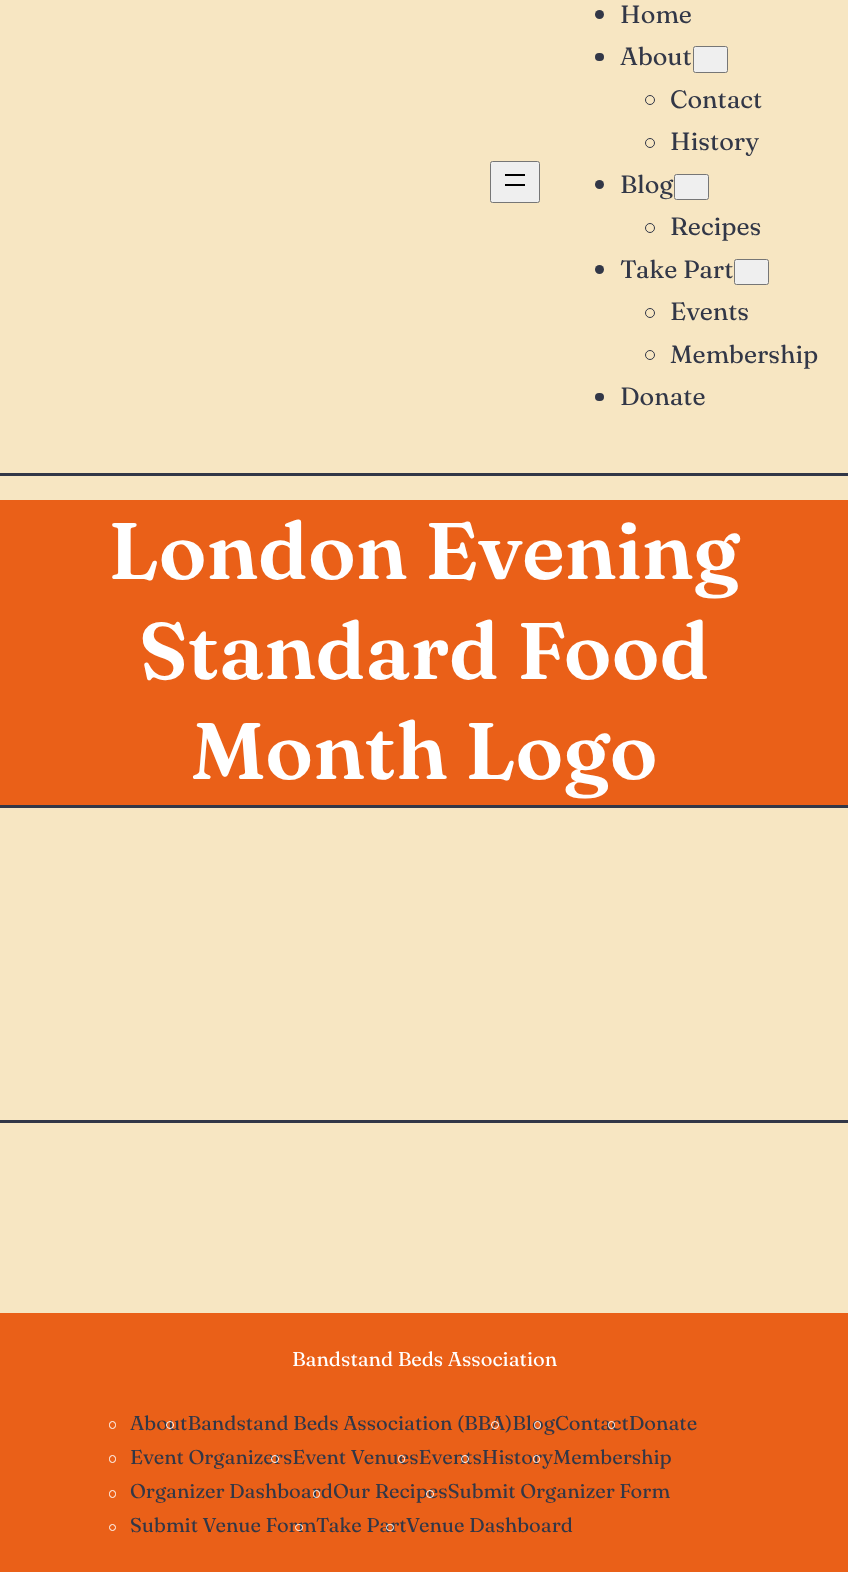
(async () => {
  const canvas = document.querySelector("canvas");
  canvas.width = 848;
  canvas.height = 1572;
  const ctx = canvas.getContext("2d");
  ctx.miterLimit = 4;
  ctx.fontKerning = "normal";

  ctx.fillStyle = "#f7e6c2";
  ctx.fillRect(0, 0, 848, 1572);
  ctx.fillStyle = "#323747";
  ctx.fillRect(0, 473, 848, 3);
  ctx.fillStyle = "#efefef";
  ctx.beginPath();
  ctx.roundRect(490.5, 161.5, 49, 41, 2);
  ctx.fill();
  ctx.strokeStyle = "#767676";
  ctx.stroke();
  ctx.fillStyle = "#000000";
  ctx.fillRect(505, 174, 20, 2);
  ctx.fillRect(505, 184, 20, 2);
  ctx.fillStyle = "#323747";
  ctx.beginPath();
  ctx.arc(599.5, 14.5, 4.5, 0, Math.PI * 2);
  ctx.fill();
  ctx.beginPath();
  ctx.roundRect(595, 53, 9, 8, 4);
  ctx.fill();
  ctx.fillStyle = "#efefef";
  ctx.beginPath();
  ctx.roundRect(693.5, 46.5, 34, 26, 2);
  ctx.fill();
  ctx.stroke();
  ctx.beginPath();
  ctx.arc(650, 100, 4.5, 0, Math.PI * 2);
  ctx.strokeStyle = "#323747";
  ctx.stroke();
  ctx.beginPath();
  ctx.arc(650, 143, 4.5, 0, Math.PI * 2);
  ctx.stroke();
  ctx.fillStyle = "#323747";
  ctx.beginPath();
  ctx.arc(599.5, 184.5, 4.5, 0, Math.PI * 2);
  ctx.fill();
  ctx.fillStyle = "#efefef";
  ctx.beginPath();
  ctx.roundRect(674.5, 174.5, 34, 25, 2);
  ctx.fill();
  ctx.strokeStyle = "#767676";
  ctx.stroke();
  ctx.beginPath();
  ctx.arc(650, 228, 4.5, 0, Math.PI * 2);
  ctx.strokeStyle = "#323747";
  ctx.stroke();
  ctx.fillStyle = "#323747";
  ctx.beginPath();
  ctx.arc(599.5, 269.5, 4.5, 0, Math.PI * 2);
  ctx.fill();
  ctx.fillStyle = "#efefef";
  ctx.beginPath();
  ctx.roundRect(734.5, 259.5, 34, 25, 2);
  ctx.fill();
  ctx.strokeStyle = "#767676";
  ctx.stroke();
  ctx.beginPath();
  ctx.arc(650, 313, 4.5, 0, Math.PI * 2);
  ctx.strokeStyle = "#323747";
  ctx.stroke();
  ctx.beginPath();
  ctx.arc(650, 355, 4.5, 0, Math.PI * 2);
  ctx.stroke();
  ctx.fillStyle = "#323747";
  ctx.beginPath();
  ctx.roundRect(595, 393, 9, 8, 4);
  ctx.fill();
  for (const [x, y, w, h, color] of [
    [0, 500, 848, 305, "#ea6018"],
    [0, 805, 848, 3, "#323747"],
    [0, 1120, 848, 3, "#323747"],
    [0, 1313, 848, 259, "#ea6018"],
  ]) {
    ctx.fillStyle = color;
    ctx.fillRect(x, y, w, h);
  }
  ctx.beginPath();
  ctx.roundRect(109.5, 1421.5, 6, 7, 3);
  ctx.strokeStyle = "#ffffff";
  ctx.stroke();
  ctx.beginPath();
  ctx.roundRect(109.5, 1455.5, 6, 7, 3);
  ctx.stroke();
  ctx.beginPath();
  ctx.roundRect(109.5, 1490.5, 6, 7, 3);
  ctx.stroke();
  ctx.beginPath();
  ctx.arc(112.5, 1527.5, 3, 0, Math.PI * 2);
  ctx.stroke();
  ctx.font = "25px Fraunces";
  ctx.fillStyle = "#323747";
  for (const [text, x, y] of [
    ["Home", 620, 23],
    ["About", 620, 65],
    ["Contact", 670, 108],
    ["History", 670, 150],
    ["Blog", 620, 193],
    ["Recipes", 670, 235],
    ["Take Part", 620, 278],
    ["Events", 670, 320],
    ["Membership", 670, 363],
    ["Donate", 620, 405],
  ]) {
    ctx.fillText(text, x, y);
  }
  ctx.font = "600 80px Fraunces";
  ctx.fillStyle = "#ffffff";
  for (const [text, x, y] of [
    ["London Evening", 108, 579],
    ["Standard Food", 139, 679],
    ["Month Logo", 191, 779],
  ]) {
    ctx.fillText(text, x, y);
  }
  ctx.font = "20px Fraunces";
  ctx.fillText("Bandstand Beds Association", 292, 1366);
  ctx.fillStyle = "#323747";
  ctx.fillText("AboutBandstand Beds Association (BBA)BlogContactDonate", 130, 1430);
  ctx.beginPath();
  ctx.arc(170, 1425, 3.5, 0, Math.PI * 2);
  ctx.stroke();
  ctx.beginPath();
  ctx.arc(495, 1425, 3.5, 0, Math.PI * 2);
  ctx.stroke();
  ctx.beginPath();
  ctx.roundRect(534.5, 1421.5, 6, 7, 3);
  ctx.stroke();
  ctx.beginPath();
  ctx.roundRect(608.5, 1421.5, 6, 7, 3);
  ctx.stroke();
  ctx.fillText("Event OrganizersEvent VenuesEventsHistoryMembership", 130, 1464);
  ctx.beginPath();
  ctx.arc(275, 1459, 3.5, 0, Math.PI * 2);
  ctx.stroke();
  ctx.beginPath();
  ctx.roundRect(398.5, 1455.5, 6, 7, 3);
  ctx.stroke();
  ctx.beginPath();
  ctx.arc(465, 1459, 3.5, 0, Math.PI * 2);
  ctx.stroke();
  ctx.beginPath();
  ctx.roundRect(533.5, 1455.5, 6, 7, 3);
  ctx.stroke();
  ctx.fillText("Organizer DashboardOur RecipesSubmit Organizer Form", 130, 1498);
  ctx.beginPath();
  ctx.roundRect(313.5, 1490.5, 6, 7, 3);
  ctx.stroke();
  ctx.beginPath();
  ctx.arc(430, 1494, 3.5, 0, Math.PI * 2);
  ctx.stroke();
  ctx.fillText("Submit Venue FormTake PartVenue Dashboard", 130, 1532);
  ctx.beginPath();
  ctx.roundRect(295.5, 1524.5, 7, 6, 3);
  ctx.stroke();
  ctx.beginPath();
  ctx.roundRect(386.5, 1524.5, 7, 6, 3);
  ctx.stroke();
})();
